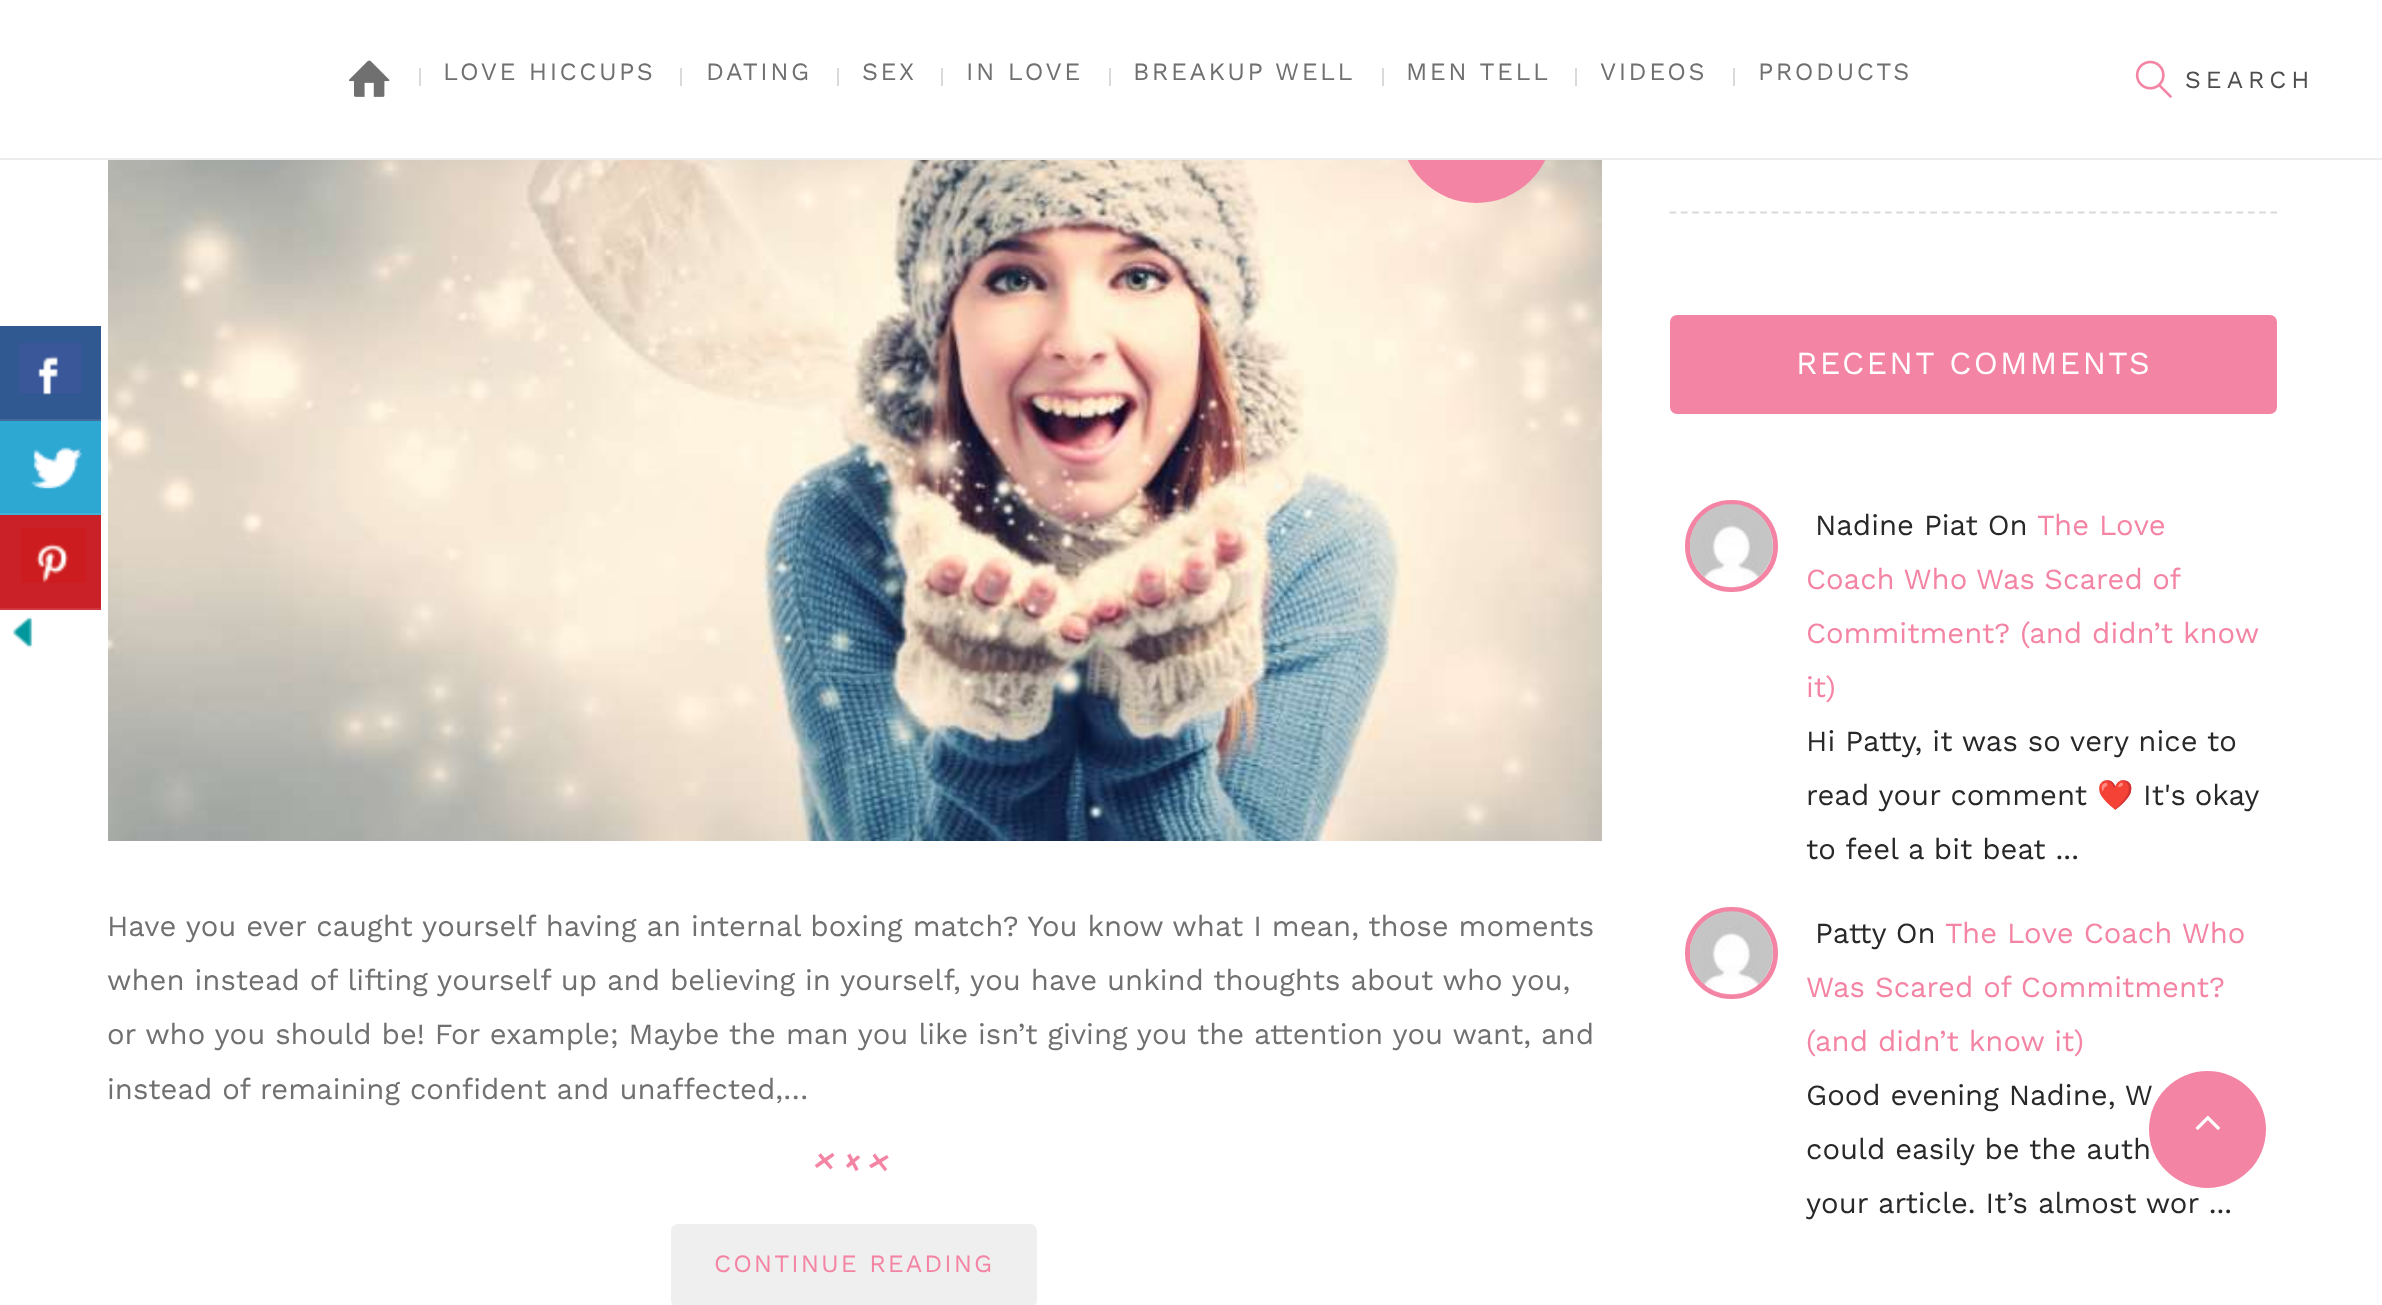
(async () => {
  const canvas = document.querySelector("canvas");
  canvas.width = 2382;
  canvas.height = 1305;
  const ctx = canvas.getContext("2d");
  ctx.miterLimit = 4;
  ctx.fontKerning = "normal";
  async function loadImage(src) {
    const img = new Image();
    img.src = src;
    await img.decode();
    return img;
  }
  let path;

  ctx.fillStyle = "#ffffff";
  ctx.fillRect(0, 0, 2382, 1305);
  ctx.fillStyle = "#305891";
  ctx.fillRect(0, 326, 101, 93);
  ctx.fillStyle = "#45699c";
  ctx.fillRect(0, 419, 101, 2);
  ctx.drawImage(await loadImage("img/1.png"), 19, 343, 63, 52);
  ctx.fillStyle = "#2ca8d2";
  ctx.fillRect(0, 421, 101, 92);
  ctx.fillStyle = "#41b1d7";
  ctx.fillRect(0, 513, 101, 2);
  ctx.drawImage(await loadImage("img/2.png"), 31, 447, 51, 42);
  ctx.fillStyle = "#ca2027";
  ctx.fillRect(0, 515, 101, 93);
  ctx.fillStyle = "#cf363d";
  ctx.fillRect(0, 608, 101, 2);
  ctx.drawImage(await loadImage("img/3.png"), 21, 528, 65, 55);
  ctx.drawImage(await loadImage("img/4.png"), 13, 616, 20, 33);
  ctx.drawImage(await loadImage("img/7.png"), 108, 160, 1494, 681);
  ctx.fillStyle = "#f484a4";
  ctx.beginPath();
  ctx.arc(1476.5, 126.5, 76.5, 0, Math.PI * 2);
  ctx.fill();
  ctx.fillStyle = "#ececec";
  ctx.fillRect(0, 158, 2382, 2);
  ctx.fillStyle = "#ffffff";
  ctx.fillRect(1400, 50, 153, 108);
  ctx.drawImage(await loadImage("img/5.png"), 349, 60, 41, 37);
  for (const [x, y, w, h, color] of [
    [419, 68, 2, 18, "#dadada"],
    [680, 68, 2, 18, "#dadada"],
    [837, 68, 2, 18, "#dadada"],
    [941, 68, 2, 18, "#dadada"],
    [1109, 68, 2, 18, "#dadada"],
    [1382, 68, 2, 18, "#dadada"],
    [1575, 68, 2, 18, "#dadada"],
    [1733, 68, 2, 18, "#dadada"],
  ]) {
    ctx.fillStyle = color;
    ctx.fillRect(x, y, w, h);
  }
  ctx.drawImage(await loadImage("img/6.png"), 2135, 60, 37, 38);
  ctx.drawImage(await loadImage("img/8.png"), 814, 1152, 75, 20);
  ctx.fillStyle = "#efefef";
  ctx.beginPath();
  ctx.roundRect(671, 1224, 366, 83, 7);
  ctx.fill();
  path = new Path2D("M1669.5 212.5H2277");
  ctx.strokeStyle = "#dadada";
  ctx.lineWidth = 2.2;
  ctx.setLineDash([6.75, 4.59]);
  ctx.stroke(path);
  ctx.fillStyle = "#f484a4";
  ctx.beginPath();
  ctx.roundRect(1670, 315, 607, 99, 7);
  ctx.fill();
  ctx.beginPath();
  ctx.roundRect(1687.5, 502.5, 88, 87, 43.5);
  ctx.strokeStyle = "#f484a4";
  ctx.lineWidth = 5;
  ctx.setLineDash([]);
  ctx.stroke();
  ctx.drawImage(await loadImage("img/9.png"), 1690, 504, 83, 84);
  ctx.beginPath();
  ctx.roundRect(1687.5, 909.5, 88, 87, 43.5);
  ctx.stroke();
  ctx.drawImage(await loadImage("img/10.png"), 1690, 911, 83, 84);
  ctx.letterSpacing = "2.5px";
  ctx.font = "25px Work Sans";
  ctx.fillStyle = "#707070";
  for (const [text, x, y] of [
    ["LOVE HICCUPS", 443, 80],
    ["DATING", 706, 80],
    ["SEX", 862, 80],
    ["IN LOVE", 966, 80],
    ["BREAKUP WELL", 1133, 80],
    ["MEN TELL", 1406, 80],
    ["VIDEOS", 1600, 80],
    ["PRODUCTS", 1758, 80],
  ]) {
    ctx.fillText(text, x, y);
  }
  ctx.letterSpacing = "5px";
  ctx.font = "24.75px Work Sans";
  ctx.fillStyle = "#4e4e4e";
  ctx.fillText("SEARCH", 2185, 88);
  ctx.letterSpacing = "0px";
  ctx.font = "29.25px Work Sans";
  ctx.fillStyle = "#707070";
  for (const [text, x, y] of [
    ["Have you ever caught yourself having an internal boxing match? You know what I mean, those moments", 107, 936],
    ["when instead of lifting yourself up and believing in yourself, you have unkind thoughts about who you,", 107, 990],
    ["or who you should be! For example; Maybe the man you like isn’t giving you the attention you want, and", 107, 1044],
    ["instead of remaining confident and unaffected,…", 107, 1099],
  ]) {
    ctx.fillText(text, x, y);
  }
  ctx.letterSpacing = "2px";
  ctx.font = "25px Work Sans";
  ctx.fillStyle = "#f484a4";
  ctx.fillText("CONTINUE READING", 714, 1272);
  ctx.letterSpacing = "2.25px";
  ctx.font = "32.25px Work Sans";
  ctx.fillStyle = "#ffffff";
  ctx.fillText("RECENT COMMENTS", 1796, 374);
  ctx.letterSpacing = "0px";
  ctx.font = "29.25px Work Sans";
  ctx.fillStyle = "#282828";
  ctx.fillText("Nadine Piat On", 1815, 535);
  ctx.fillStyle = "#f484a4";
  ctx.fillText("The Love", 2037, 535);
  ctx.wordSpacing = "-0.5px";
  ctx.fillText("Coach Who Was Scared of", 1806, 589);
  ctx.wordSpacing = "0px";
  ctx.fillText("Commitment? (and didn’t know", 1806, 643);
  ctx.fillText("it)", 1806, 697);
  ctx.fillStyle = "#282828";
  ctx.fillText("Hi Patty, it was so very nice to", 1806, 751);
  ctx.fillText("read your comment", 1806, 805);
  ctx.font = "29.25px Noto Color Emoji";
  ctx.fillText("❤️", 2097, 805);
  ctx.wordSpacing = "-1px";
  ctx.font = "29.25px Work Sans";
  ctx.fillText("It's okay", 2143, 805);
  ctx.wordSpacing = "0px";
  ctx.fillText("to feel a bit beat ...", 1806, 859);
  ctx.fillText("Patty On", 1815, 943);
  ctx.fillStyle = "#f484a4";
  for (const [text, x, y] of [
    ["The Love Coach Who", 1945, 943],
    ["Was Scared of Commitment?", 1806, 997],
    ["(and didn’t know it)", 1806, 1051],
  ]) {
    ctx.fillText(text, x, y);
  }
  ctx.fillStyle = "#282828";
  for (const [text, x, y] of [
    ["Good evening Nadine, W", 1806, 1105],
    ["could easily be the auth", 1806, 1159],
    ["your article. It’s almost wor ...", 1806, 1213],
  ]) {
    ctx.fillText(text, x, y);
  }
  ctx.fillStyle = "#f484a4";
  ctx.beginPath();
  ctx.arc(2207.5, 1129.5, 58.5, 0, Math.PI * 2);
  ctx.fill();
  ctx.drawImage(await loadImage("img/11.png"), 2195, 1115, 25, 15);
})();
